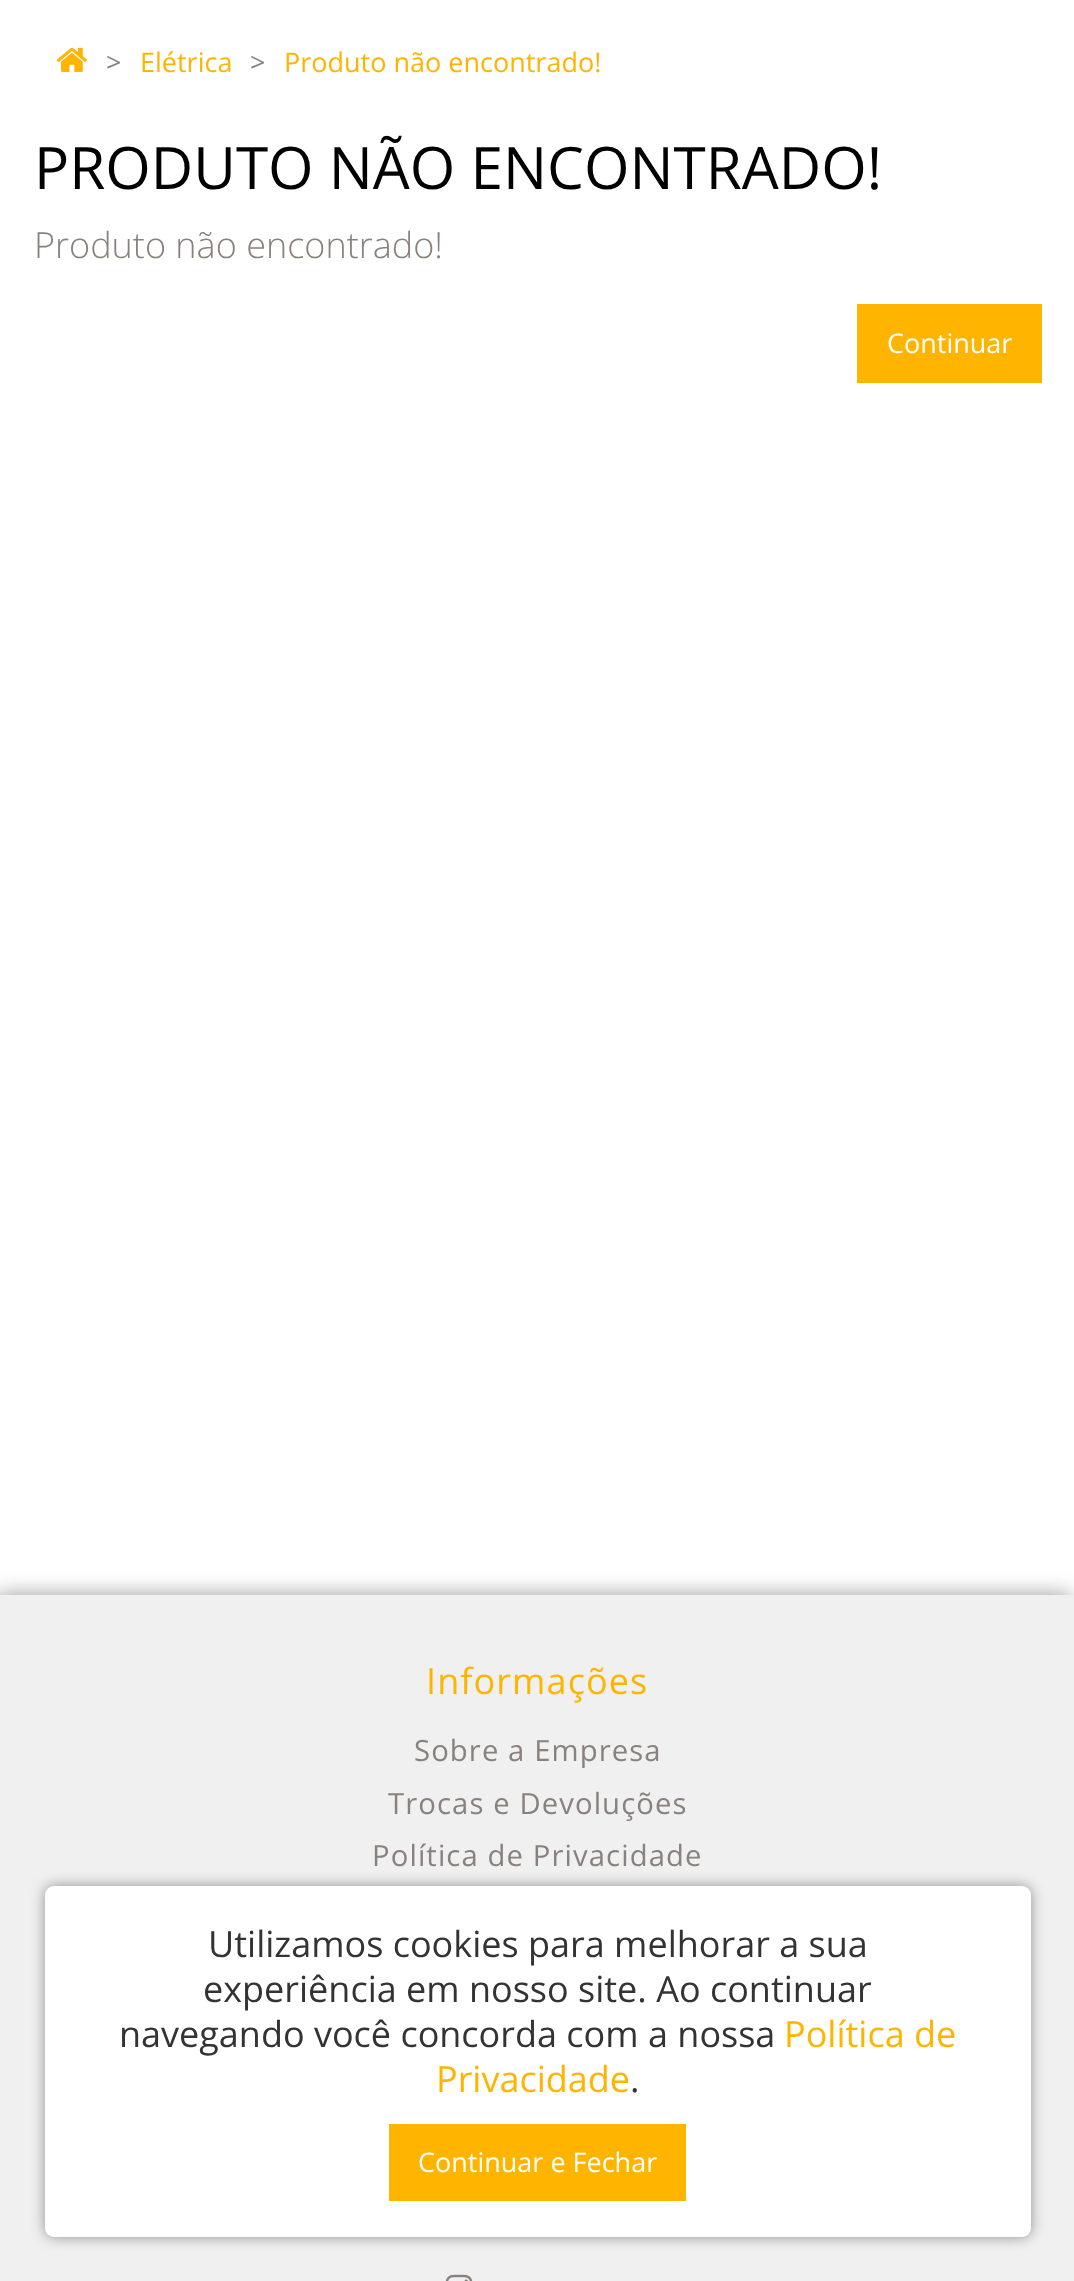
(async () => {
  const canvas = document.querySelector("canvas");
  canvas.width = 1074;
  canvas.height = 2281;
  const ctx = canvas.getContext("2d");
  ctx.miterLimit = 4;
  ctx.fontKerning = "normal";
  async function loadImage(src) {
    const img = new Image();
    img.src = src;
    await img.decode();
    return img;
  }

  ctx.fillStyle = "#ffffff";
  ctx.fillRect(0, 0, 1074, 2281);
  ctx.drawImage(await loadImage("img/1.png"), 56, 47, 31, 25);
  ctx.fillStyle = "#ffb400";
  ctx.fillRect(857, 304, 185, 79);
  ctx.fillStyle = "rgba(0, 0, 0, 0.4)";
  ctx.filter = "blur(11px)";
  ctx.beginPath();
  ctx.rect(-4, 1595, 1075, 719);
  ctx.fill();
  ctx.filter = "none";
  ctx.fillStyle = "#f0f0f0";
  ctx.fillRect(0, 1595, 1074, 686);
  ctx.drawImage(await loadImage("img/2.png"), 445, 2274, 28, 7);
  ctx.fillStyle = "rgba(0, 0, 0, 0.4)";
  ctx.filter = "blur(7px)";
  ctx.beginPath();
  ctx.roundRect(45, 1886, 986, 351, 9);
  ctx.fill();
  ctx.filter = "none";
  ctx.fillStyle = "#ffffff";
  ctx.beginPath();
  ctx.roundRect(45, 1886, 986, 351, 9);
  ctx.fill();
  ctx.fillStyle = "#ffb400";
  ctx.fillRect(389, 2124, 297, 77);
  ctx.font = "27px Open Sans";
  ctx.fillStyle = "#88817e";
  ctx.fillText(">", 106, 72);
  ctx.fillStyle = "#ffb400";
  ctx.fillText("Elétrica", 140, 72);
  ctx.fillStyle = "#88817e";
  ctx.fillText(">", 250, 72);
  ctx.fillStyle = "#ffb400";
  ctx.fillText("Produto não encontrado!", 284, 72);
  ctx.font = "58.5px Open Sans";
  ctx.fillStyle = "#000000";
  ctx.fillText("PRODUTO NÃO ENCONTRADO!", 34, 189);
  ctx.font = "300 36px Open Sans";
  ctx.fillStyle = "#88817e";
  ctx.fillText("Produto não encontrado!", 34, 258);
  ctx.font = "27px Open Sans";
  ctx.fillStyle = "#ffffff";
  ctx.fillText("Continuar", 887, 353);
  ctx.letterSpacing = "1.1px";
  ctx.font = "36px Open Sans";
  ctx.fillStyle = "#ffb400";
  ctx.fillText("Informações", 426, 1694);
  ctx.font = "29.25px Open Sans";
  ctx.fillStyle = "#88817e";
  for (const [text, x, y] of [
    ["Sobre a Empresa", 414, 1761],
    ["Trocas e Devoluções", 388, 1814],
    ["Política de Privacidade", 372, 1866],
  ]) {
    ctx.fillText(text, x, y);
  }
  ctx.letterSpacing = "0px";
  ctx.font = "36px Open Sans";
  ctx.fillStyle = "#333333";
  for (const [text, x, y] of [
    ["Utilizamos cookies para melhorar a sua", 208, 1957],
    ["experiência em nosso site. Ao continuar", 203, 2002],
    ["navegando você concorda com a nossa", 119, 2047],
  ]) {
    ctx.fillText(text, x, y);
  }
  ctx.fillStyle = "#ffb400";
  ctx.fillText("Política de", 784, 2047);
  ctx.fillText("Privacidade", 436, 2092);
  ctx.fillStyle = "#333333";
  ctx.fillText(".", 630, 2092);
  ctx.font = "27px Open Sans";
  ctx.fillStyle = "#ffffff";
  ctx.fillText("Continuar e Fechar", 418, 2172);
})();
